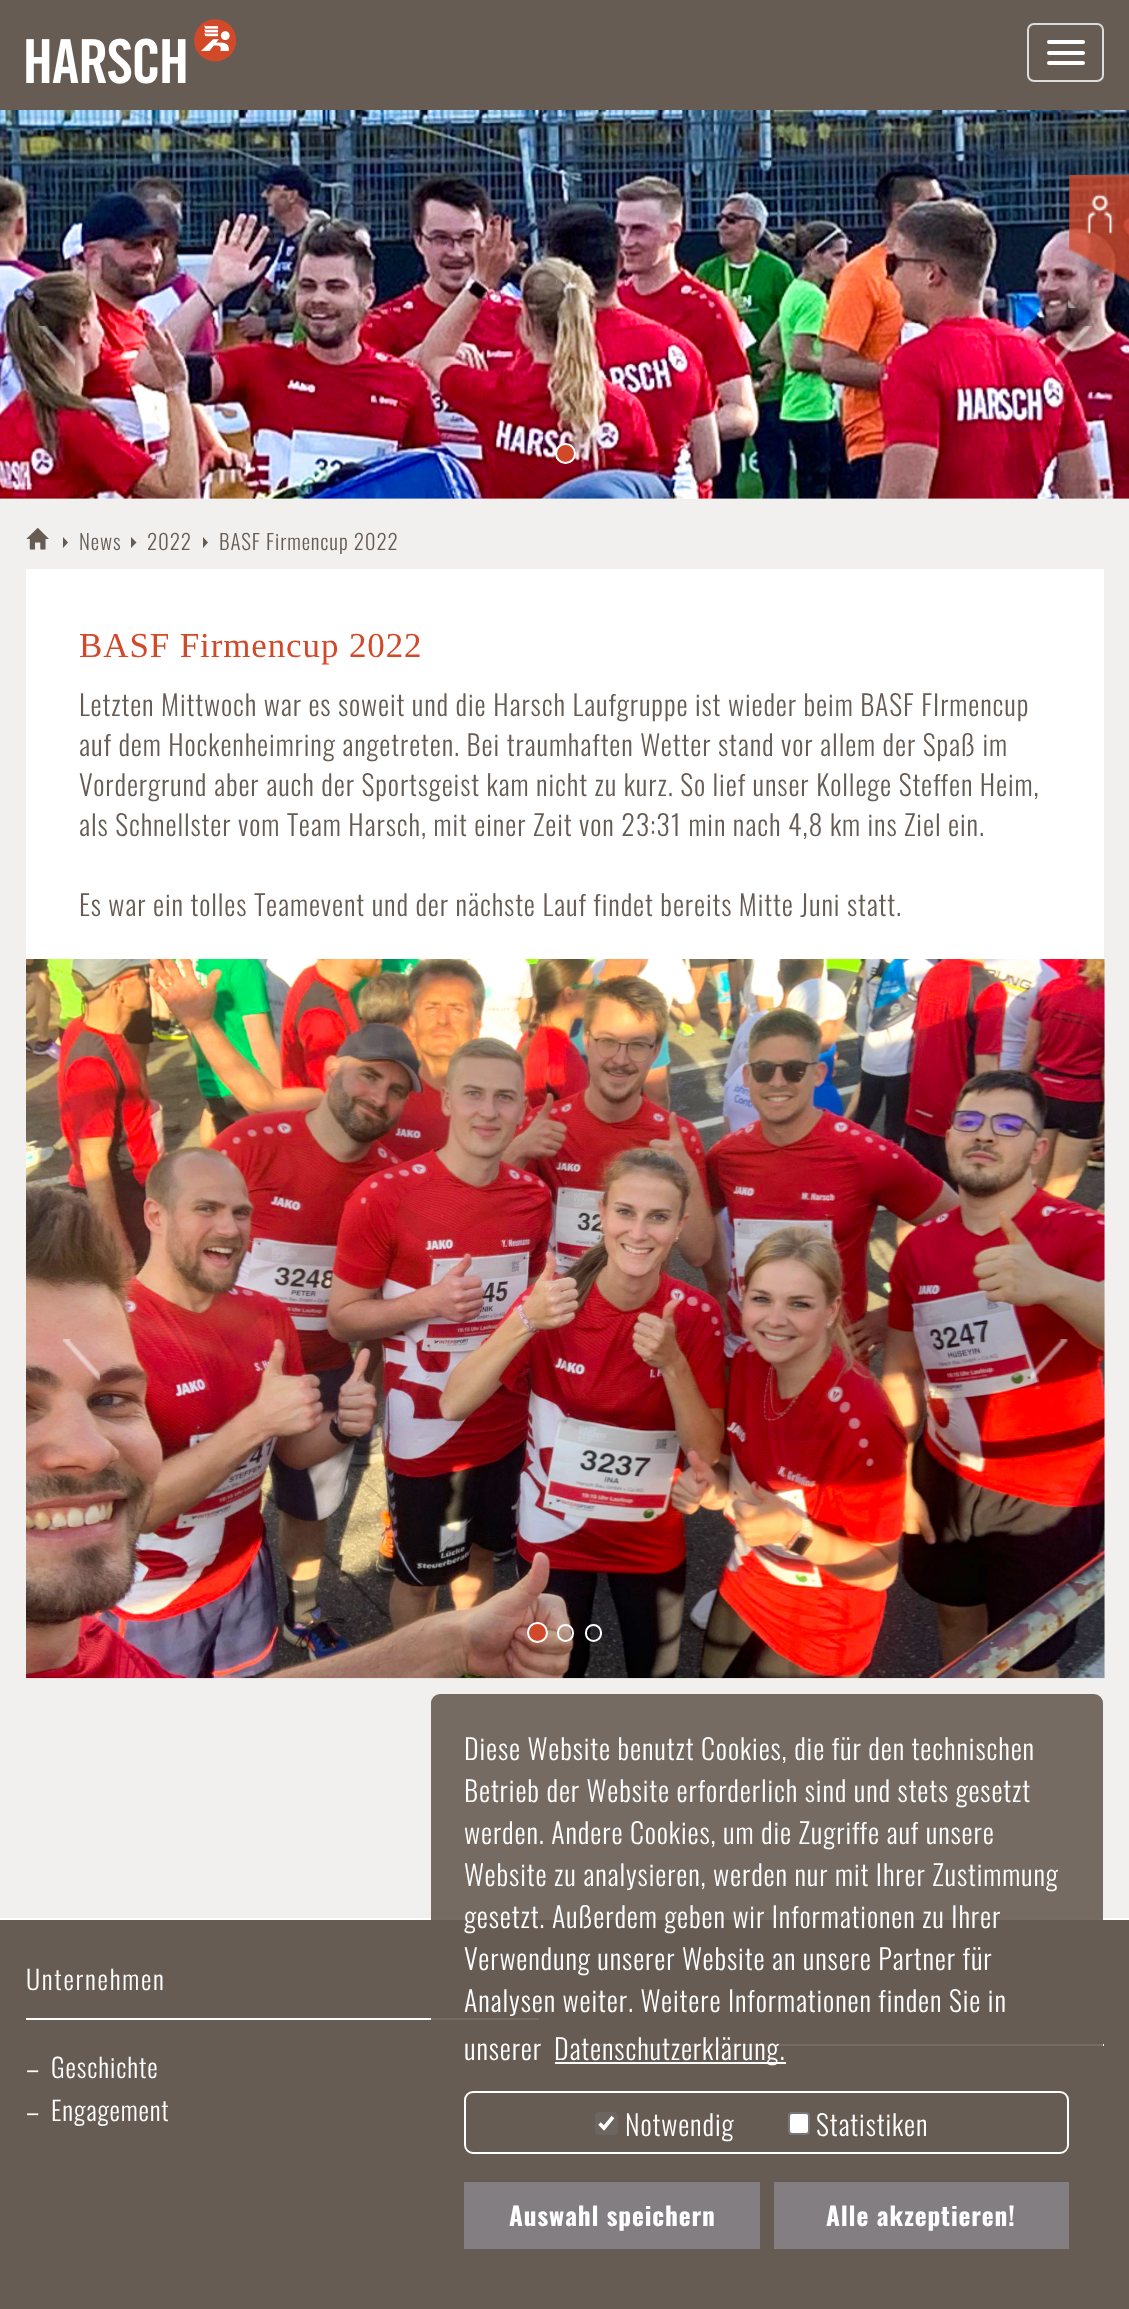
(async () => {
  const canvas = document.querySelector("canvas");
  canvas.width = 1129;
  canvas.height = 2309;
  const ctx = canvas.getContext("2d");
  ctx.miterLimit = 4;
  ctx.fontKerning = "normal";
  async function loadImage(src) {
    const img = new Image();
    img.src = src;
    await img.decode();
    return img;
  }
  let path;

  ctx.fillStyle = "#ffffff";
  ctx.fillRect(0, 0, 1129, 2309);
  ctx.fillStyle = "#675c53";
  ctx.fillRect(0, 0, 1129, 110);
  ctx.drawImage(await loadImage("img/1.png"), 26, 19, 210, 65);
  ctx.beginPath();
  ctx.roundRect(1028, 24, 75, 57, 6);
  ctx.strokeStyle = "#dddddd";
  ctx.lineWidth = 2;
  ctx.stroke();
  ctx.fillStyle = "#ffffff";
  ctx.beginPath();
  ctx.roundRect(1047, 40, 38, 4, 2);
  ctx.fill();
  ctx.beginPath();
  ctx.roundRect(1047, 51, 38, 4, 2);
  ctx.fill();
  ctx.beginPath();
  ctx.roundRect(1047, 61, 38, 4, 2);
  ctx.fill();
  ctx.drawImage(await loadImage("img/2.png"), 0, 110, 1129, 389);
  ctx.drawImage(await loadImage("img/3.png"), 38, 326, 38, 40);
  ctx.drawImage(await loadImage("img/4.png"), 1055, 326, 37, 40);
  ctx.fillStyle = "#d2492a";
  ctx.beginPath();
  ctx.arc(565.5, 453.5, 9.5, 0, Math.PI * 2);
  ctx.fill();
  ctx.strokeStyle = "#ffffff";
  ctx.stroke();
  ctx.drawImage(await loadImage("img/5.png"), 1068, 175, 61, 133);
  ctx.fillStyle = "#f1f0ef";
  ctx.fillRect(0, 499, 1129, 1419);
  ctx.drawImage(await loadImage("img/6.png"), 26, 528, 23, 22);
  ctx.fillStyle = "#675c53";
  path = new Path2D("M63 548V537L68 542.5Z");
  ctx.fill(path);
  path = new Path2D("M131 548V537L136.5 542.5Z");
  ctx.fill(path);
  path = new Path2D("M203 548V537L208 542.5Z");
  ctx.fill(path);
  ctx.fillStyle = "#ffffff";
  ctx.fillRect(26, 569, 1078, 390);
  ctx.drawImage(await loadImage("img/7.png"), 26, 959, 1079, 720);
  ctx.drawImage(await loadImage("img/8.png"), 63, 1339, 37, 42);
  ctx.drawImage(await loadImage("img/9.png"), 1030, 1339, 38, 42);
  ctx.fillStyle = "#d2492a";
  ctx.beginPath();
  ctx.arc(537.5, 1632.5, 9.5, 0, Math.PI * 2);
  ctx.fill();
  ctx.stroke();
  ctx.beginPath();
  ctx.roundRect(558, 1625, 15, 16, 7.5);
  ctx.stroke();
  ctx.beginPath();
  ctx.roundRect(586, 1625, 15, 16, 7.5);
  ctx.stroke();
  for (const [x, y, w, h, color] of [
    [0, 1920, 1129, 389, "#675c53"],
    [26, 2018, 513, 2, "#ffffff"],
    [592, 2044, 512, 2, "#ffffff"],
  ]) {
    ctx.fillStyle = color;
    ctx.fillRect(x, y, w, h);
  }
  ctx.fillStyle = "rgba(103, 92, 83, 0.9)";
  ctx.beginPath();
  ctx.roundRect(431, 1694, 672, 588, 9);
  ctx.fill();
  ctx.fillStyle = "#ffffff";
  ctx.fillRect(555, 2062, 231, 2);
  ctx.beginPath();
  ctx.roundRect(465, 2092, 603, 61, 8);
  ctx.stroke();
  ctx.fillStyle = "#6c645e";
  ctx.beginPath();
  ctx.roundRect(595, 2112, 23, 23, 4);
  ctx.fill();
  path = new Path2D("M599.5 2123.5L604 2128L613 2117");
  ctx.lineWidth = 3.6;
  ctx.stroke(path);
  ctx.fillStyle = "#ffffff";
  ctx.beginPath();
  ctx.roundRect(789, 2113, 20, 21, 3);
  ctx.fill();
  ctx.strokeStyle = "#767676";
  ctx.lineWidth = 2;
  ctx.stroke();
  ctx.fillStyle = "#837e81";
  ctx.fillRect(464, 2182, 296, 67);
  ctx.fillRect(774, 2182, 295, 67);
  ctx.letterSpacing = "0.88px";
  ctx.font = "300 21px Oswald";
  ctx.fillStyle = "#675c53";
  for (const [text, x, y] of [
    ["News", 79, 550],
    ["2022", 147, 550],
    ["BASF Firmencup 2022", 219, 550],
  ]) {
    ctx.fillText(text, x, y);
  }
  ctx.font = "35px Liberation Serif";
  ctx.fillStyle = "#d2492a";
  ctx.fillText("BASF Firmencup 2022", 79, 657);
  ctx.font = "300 28px Oswald";
  ctx.fillStyle = "#675c53";
  for (const [text, x, y] of [
    ["Letzten Mittwoch war es soweit und die Harsch Laufgruppe ist wieder beim BASF FIrmencup", 79, 716],
    ["auf dem Hockenheimring angetreten. Bei traumhaften Wetter stand vor allem der Spaß im", 79, 756],
    ["Vordergrund aber auch der Sportsgeist kam nicht zu kurz. So lief unser Kollege Steffen Heim,", 79, 796],
    ["als Schnellster vom Team Harsch, mit einer Zeit von 23:31 min nach 4,8 km ins Ziel ein.", 79, 836],
    ["Es war ein tolles Teamevent und der nächste Lauf findet bereits Mitte Juni statt.", 79, 916],
  ]) {
    ctx.fillText(text, x, y);
  }
  ctx.letterSpacing = "1.75px";
  ctx.font = "300 26.25px Oswald";
  ctx.fillStyle = "#ffffff";
  ctx.fillText("Unternehmen", 26, 1990);
  ctx.letterSpacing = "0.88px";
  ctx.font = "300 28px Oswald";
  ctx.fillText("–", 26, 2078);
  ctx.font = "300 26.25px Oswald";
  ctx.fillText("Geschichte", 51, 2078);
  ctx.font = "300 28px Oswald";
  ctx.fillText("–", 26, 2121);
  ctx.font = "300 26.25px Oswald";
  ctx.fillText("Engagement", 51, 2121);
  ctx.font = "300 28px Oswald";
  for (const [text, x, y] of [
    ["Diese Website benutzt Cookies, die für den technischen", 464, 1760],
    ["Betrieb der Website erforderlich sind und stets gesetzt", 464, 1802],
    ["werden. Andere Cookies, um die Zugriffe auf unsere", 464, 1844],
    ["Website zu analysieren, werden nur mit Ihrer Zustimmung", 464, 1886],
    ["gesetzt. Außerdem geben wir Informationen zu Ihrer", 464, 1928],
    ["Verwendung unserer Website an unsere Partner für", 464, 1970],
    ["Analysen weiter. Weitere Informationen finden Sie in", 464, 2012],
    ["unserer", 464, 2060],
    ["Datenschutzerklärung.", 554, 2060],
    ["Notwendig", 625, 2136],
    ["Statistiken", 816, 2136],
  ]) {
    ctx.fillText(text, x, y);
  }
  ctx.font = "bold 25.25px Oswald";
  ctx.fillText("Auswahl speichern", 509, 2226);
  ctx.fillText("Alle akzeptieren!", 826, 2226);
})();
